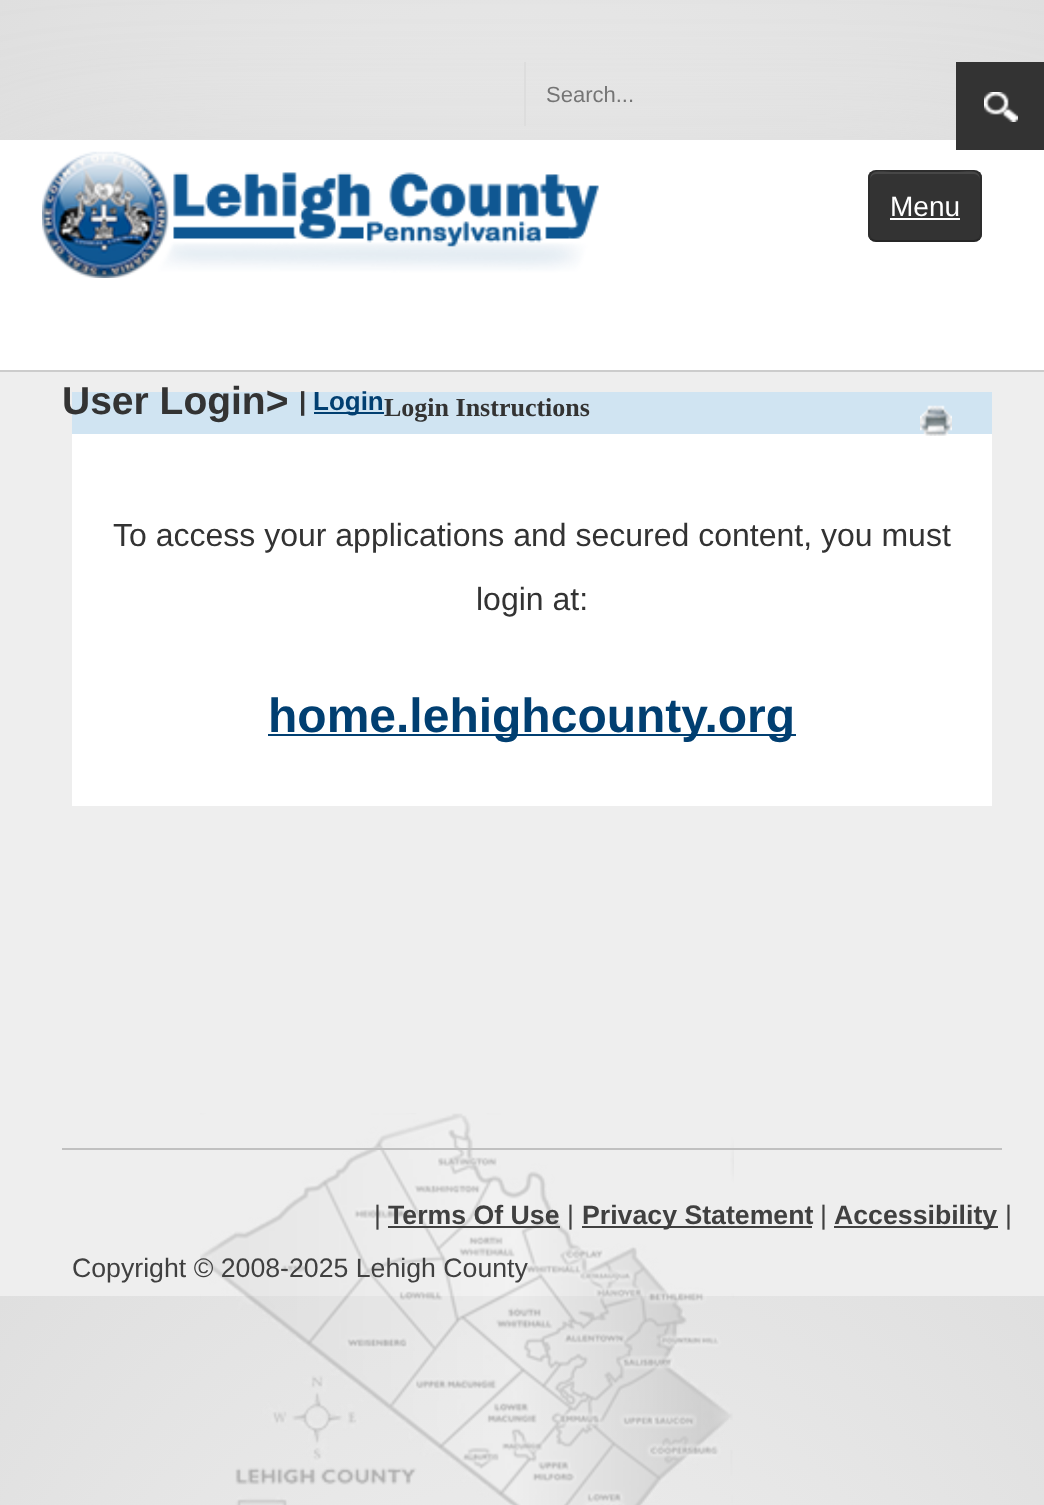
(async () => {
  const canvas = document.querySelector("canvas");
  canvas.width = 1044;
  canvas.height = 1505;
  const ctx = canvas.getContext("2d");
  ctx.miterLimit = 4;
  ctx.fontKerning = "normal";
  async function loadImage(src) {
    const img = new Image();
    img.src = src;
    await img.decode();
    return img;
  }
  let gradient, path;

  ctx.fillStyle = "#ffffff";
  ctx.fillRect(0, 0, 1044, 1505);
  gradient = ctx.createRadialGradient(522, 522.08, 0, 522, 522.08, 738);
  gradient.addColorStop(0, "#efefef");
  gradient.addColorStop(0.5, "#e9e9e9");
  gradient.addColorStop(1, "#dfdfdf");
  ctx.fillStyle = gradient;
  ctx.beginPath();
  ctx.rect(0, 0, 1044, 140);
  ctx.save();
  ctx.clip();
  ctx.scale(1, 916 / 738);
  ctx.fillRect(0, 0, 1044, 1213);
  ctx.restore();
  gradient = ctx.createRadialGradient(522, 1566.24, 0, 522, 1566.24, 738);
  gradient.addColorStop(0, "#efefef");
  gradient.addColorStop(0.5, "#e9e9e9");
  gradient.addColorStop(1, "#dfdfdf");
  ctx.fillStyle = gradient;
  ctx.beginPath();
  ctx.rect(0, 1296, 1044, 209);
  ctx.save();
  ctx.clip();
  ctx.scale(1, 916 / 738);
  ctx.fillRect(0, 0, 1044, 1213);
  ctx.restore();
  ctx.fillStyle = "#cacaca";
  ctx.filter = "blur(100px)";
  ctx.beginPath();
  ctx.rect(2, 240, 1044, 232);
  ctx.fill();
  ctx.filter = "none";
  for (const [x, y, w, h, color] of [
    [524, 62, 2, 64, "#dddddd"],
    [0, 140, 1044, 230, "#ffffff"],
    [956, 62, 88, 88, "#333333"],
  ]) {
    ctx.fillStyle = color;
    ctx.fillRect(x, y, w, h);
  }
  ctx.drawImage(await loadImage("img/1.png"), 984, 92, 34, 30);
  ctx.fillStyle = "#cccccc";
  ctx.fillRect(0, 370, 1044, 2);
  ctx.drawImage(await loadImage("img/2.png"), 42, 151, 557, 127);
  ctx.fillStyle = "#333333";
  ctx.beginPath();
  ctx.roundRect(868, 170, 114, 72, 8);
  ctx.fill();
  ctx.save();
  ctx.beginPath();
  ctx.roundRect(868, 170, 114, 72, 8);
  ctx.clip();
  ctx.fillRect(868, 172, 114, 68);
  ctx.restore();
  ctx.fillStyle = "#474747";
  path = new Path2D("M876 174H974C977 174 980 177 980 180C980 168 967 172 958 172H892C883 172 870 168 870 180C870 177 873 174 876 174Z");
  ctx.fill(path);
  path = new Path2D("M979 239C977.5 240.5 976 241 974 241H876C874 241 872.5 240.5 871 239");
  ctx.strokeStyle = "rgba(0, 0, 0, 0.25)";
  ctx.lineWidth = 2;
  ctx.stroke(path);
  path = new Path2D("M871 239C869.5 237.5 869 236 869 234V178C869 176 869.5 174.5 871 173C872.5 171.5 874 171 876 171H974C976 171 977.5 171.5 979 173C980.5 174.5 981 176 981 178V234C981 236 980.5 237.5 979 239");
  ctx.strokeStyle = "rgba(0, 0, 0, 0.1)";
  ctx.stroke(path);
  for (const [x, y, w, h, color] of [
    [890, 218, 70, 2, "#ffffff"],
    [0, 372, 1044, 924, "#eeeeee"],
    [72, 392, 920, 42, "#d0e4f2"],
    [314, 412, 70, 2, "#013f71"],
    [72, 434, 920, 372, "#ffffff"],
    [268, 734, 528, 2, "#013f71"],
  ]) {
    ctx.fillStyle = color;
    ctx.fillRect(x, y, w, h);
  }
  ctx.drawImage(await loadImage("img/3.png"), 920, 405, 32, 31);
  ctx.drawImage(await loadImage("img/4.png"), 200, 1113, 534, 392);
  for (const [x, y, w, h, color] of [
    [62, 1148, 940, 2, "#c0c0c0"],
    [388, 1226, 172, 2, "#404040"],
    [582, 1226, 230, 2, "#404040"],
    [834, 1226, 164, 2, "#404040"],
  ]) {
    ctx.fillStyle = color;
    ctx.fillRect(x, y, w, h);
  }
  ctx.font = "22px Liberation Sans";
  ctx.fillStyle = "#757575";
  ctx.fillText("Search...", 546, 102);
  ctx.font = "28px Liberation Sans";
  ctx.fillStyle = "#ffffff";
  ctx.fillText("Menu", 890, 216);
  ctx.font = "bold 39px Liberation Sans";
  ctx.fillStyle = "#333333";
  ctx.fillText("User Login>", 62, 414);
  ctx.font = "bold 26px Liberation Sans";
  ctx.fillText("|", 299, 410);
  ctx.fillStyle = "#013f71";
  ctx.fillText("Login", 313, 410);
  ctx.font = "bold 26px Liberation Serif";
  ctx.fillStyle = "#333333";
  ctx.fillText("Login Instructions", 384, 416);
  ctx.font = "32px Liberation Sans";
  ctx.fillText("To access your applications and secured content, you must", 113, 546);
  ctx.fillText("login at:", 476, 610);
  ctx.font = "bold 48px Liberation Sans";
  ctx.fillStyle = "#013f71";
  ctx.fillText("home.lehighcounty.org", 268, 732);
  ctx.font = "26.7px Liberation Sans";
  ctx.fillStyle = "#404040";
  ctx.fillText("|", 374, 1224);
  ctx.font = "bold 26.7px Liberation Sans";
  ctx.fillText("Terms Of Use", 388, 1224);
  ctx.font = "26.7px Liberation Sans";
  ctx.fillText("|", 567, 1224);
  ctx.font = "bold 26.7px Liberation Sans";
  ctx.fillText("Privacy Statement", 582, 1224);
  ctx.font = "26.7px Liberation Sans";
  ctx.fillText("|", 820, 1224);
  ctx.font = "bold 26.7px Liberation Sans";
  ctx.fillText("Accessibility", 834, 1224);
  ctx.font = "26.7px Liberation Sans";
  ctx.fillText("|", 1005, 1224);
  ctx.fillText("Copyright © 2008-2025 Lehigh County", 72, 1277);
})();
